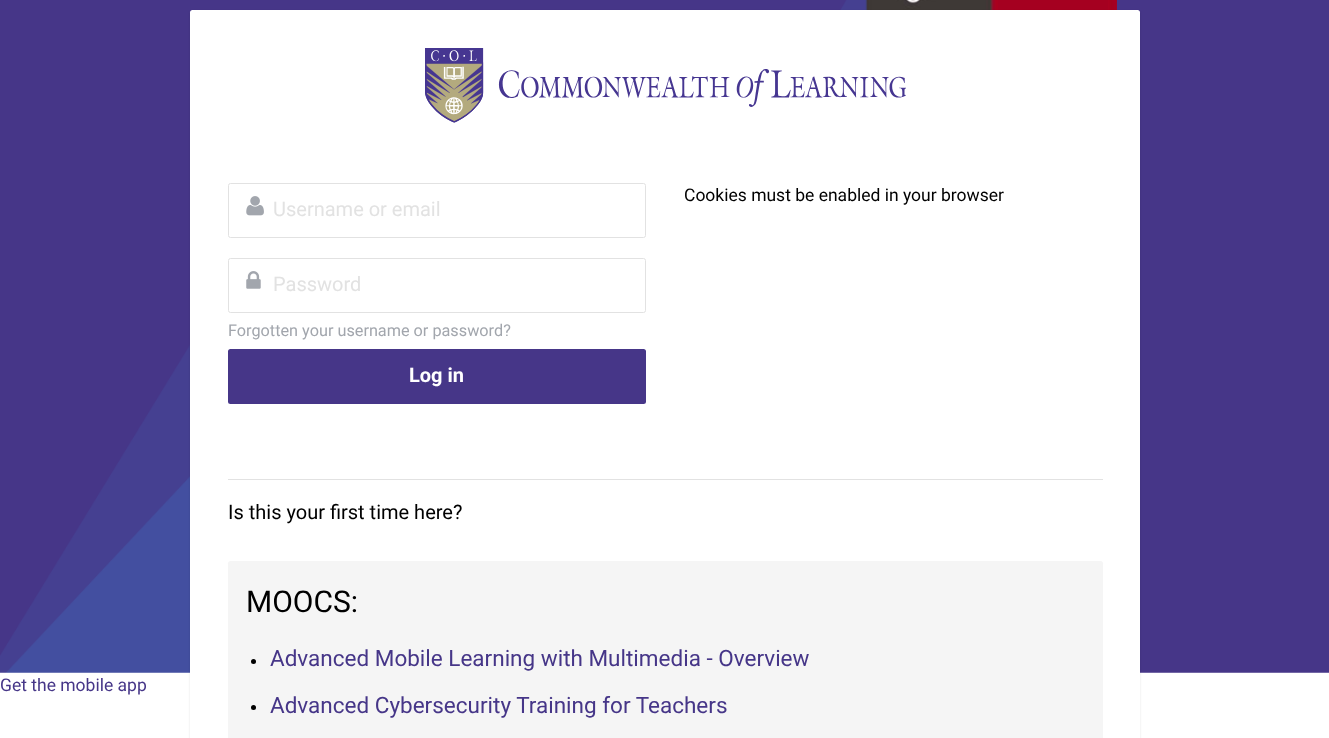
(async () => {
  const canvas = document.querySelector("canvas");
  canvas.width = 1329;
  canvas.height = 738;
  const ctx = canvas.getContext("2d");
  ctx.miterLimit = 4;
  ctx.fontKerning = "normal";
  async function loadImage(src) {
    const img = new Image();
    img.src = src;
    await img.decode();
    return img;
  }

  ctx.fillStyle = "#ffffff";
  ctx.fillRect(0, 0, 1329, 738);
  ctx.drawImage(await loadImage("img/1.png"), 0, 0, 1329, 673);
  ctx.fillStyle = "rgba(0, 0, 0, 0.1)";
  ctx.filter = "blur(1px)";
  ctx.beginPath();
  ctx.roundRect(190, 11, 950, 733, 2.5);
  ctx.fill();
  ctx.filter = "none";
  ctx.fillStyle = "#ffffff";
  ctx.beginPath();
  ctx.roundRect(190, 10, 950, 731, 2.5);
  ctx.fill();
  ctx.drawImage(await loadImage("img/2.png"), 425, 48, 481, 75);
  ctx.beginPath();
  ctx.roundRect(228.5, 183.5, 417, 54, 2);
  ctx.strokeStyle = "#e2e2e2";
  ctx.stroke();
  ctx.drawImage(await loadImage("img/3.png"), 246, 196, 18, 20);
  ctx.beginPath();
  ctx.roundRect(228.5, 258.5, 417, 54, 2);
  ctx.stroke();
  ctx.drawImage(await loadImage("img/4.png"), 246, 271, 15, 18);
  ctx.fillStyle = "#463688";
  ctx.beginPath();
  ctx.roundRect(229.5, 350.5, 415, 52, 1);
  ctx.fill();
  ctx.strokeStyle = "#463688";
  ctx.lineWidth = 3;
  ctx.stroke();
  ctx.fillStyle = "#e2e2e2";
  ctx.fillRect(228, 479, 875, 1);
  ctx.fillStyle = "#f5f5f5";
  ctx.beginPath();
  ctx.roundRect(228, 561, 875, 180, 2.5);
  ctx.fill();
  ctx.fillStyle = "#000000";
  ctx.beginPath();
  ctx.arc(253.5, 661.5, 2.5, 0, Math.PI * 2);
  ctx.fill();
  ctx.beginPath();
  ctx.arc(253.5, 707.5, 2.5, 0, Math.PI * 2);
  ctx.fill();
  ctx.font = "17.5px Roboto";
  ctx.fillStyle = "#463688";
  ctx.fillText("Get the mobile app", 0, 691);
  ctx.fillStyle = "#000000";
  ctx.fillText("Cookies must be enabled in your browser", 684, 201);
  ctx.font = "20px Roboto";
  ctx.fillStyle = "#e2e2e2";
  ctx.fillText("Username or email", 273, 216);
  ctx.fillText("Password", 273, 291);
  ctx.font = "16.25px Roboto";
  ctx.fillStyle = "#a2a6ad";
  ctx.fillText("Forgotten your username or password?", 228, 336);
  ctx.font = "bold 20px Roboto";
  ctx.fillStyle = "#ffffff";
  ctx.fillText("Log in", 409, 382);
  ctx.font = "20px Roboto";
  ctx.fillStyle = "#000000";
  ctx.fillText("Is this your first time here?", 228, 519);
  ctx.font = "30px Roboto";
  ctx.fillText("MOOCS:", 246, 612);
  ctx.font = "22.5px Roboto";
  ctx.fillStyle = "#463688";
  ctx.fillText("Advanced Mobile Learning with Multimedia - Overview", 270, 666);
  ctx.fillText("Advanced Cybersecurity Training for Teachers", 270, 713);
})();
